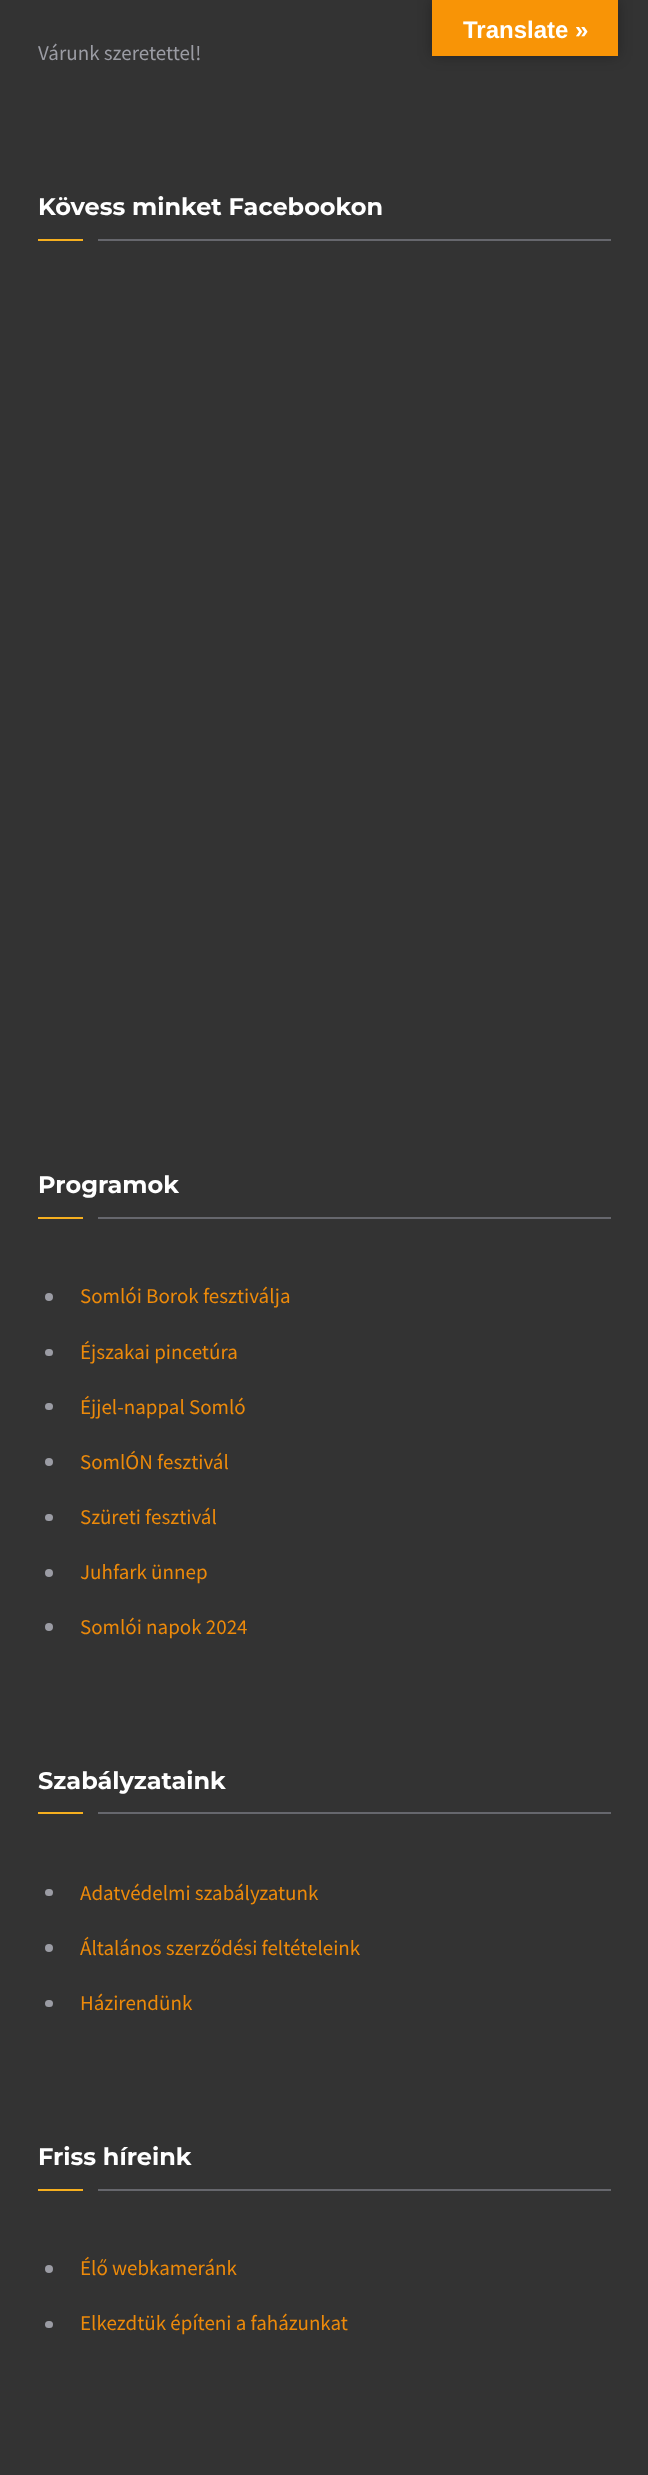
(async () => {
  const canvas = document.querySelector("canvas");
  canvas.width = 648;
  canvas.height = 2475;
  const ctx = canvas.getContext("2d");
  ctx.miterLimit = 4;
  ctx.fontKerning = "normal";

  ctx.fillStyle = "#333333";
  ctx.fillRect(0, 0, 648, 2475);
  ctx.fillStyle = "rgba(0, 0, 0, 0.3)";
  ctx.filter = "blur(7px)";
  ctx.beginPath();
  ctx.rect(432, 0, 186, 56);
  ctx.fill();
  ctx.filter = "none";
  for (const [x, y, w, h, color] of [
    [432, 0, 186, 56, "#f89406"],
    [38, 239, 45, 2, "#f6af1f"],
    [98, 239, 513, 2, "#66676d"],
    [38, 1217, 45, 2, "#f6af1f"],
    [98, 1217, 513, 2, "#66676d"],
  ]) {
    ctx.fillStyle = color;
    ctx.fillRect(x, y, w, h);
  }
  ctx.fillStyle = "#9b9ca4";
  ctx.beginPath();
  ctx.arc(49, 1297, 4, 0, Math.PI * 2);
  ctx.fill();
  ctx.beginPath();
  ctx.roundRect(45, 1349, 8, 7, 3.5);
  ctx.fill();
  ctx.beginPath();
  ctx.roundRect(45, 1403, 8, 7, 3.5);
  ctx.fill();
  ctx.beginPath();
  ctx.arc(49, 1462, 4, 0, Math.PI * 2);
  ctx.fill();
  ctx.beginPath();
  ctx.roundRect(45, 1514, 8, 7, 3.5);
  ctx.fill();
  ctx.beginPath();
  ctx.arc(49, 1573, 4, 0, Math.PI * 2);
  ctx.fill();
  ctx.beginPath();
  ctx.arc(49, 1627, 4, 0, Math.PI * 2);
  ctx.fill();
  ctx.fillStyle = "#f6af1f";
  ctx.fillRect(38, 1812, 45, 2);
  ctx.fillStyle = "#66676d";
  ctx.fillRect(98, 1812, 513, 2);
  ctx.fillStyle = "#9b9ca4";
  ctx.beginPath();
  ctx.roundRect(45, 1889, 8, 7, 3.5);
  ctx.fill();
  ctx.beginPath();
  ctx.arc(49, 1948, 4, 0, Math.PI * 2);
  ctx.fill();
  ctx.beginPath();
  ctx.roundRect(45, 2000, 8, 7, 3.5);
  ctx.fill();
  ctx.fillStyle = "#f6af1f";
  ctx.fillRect(38, 2189, 45, 2);
  ctx.fillStyle = "#66676d";
  ctx.fillRect(98, 2189, 513, 2);
  ctx.fillStyle = "#9b9ca4";
  ctx.beginPath();
  ctx.arc(49, 2269, 4, 0, Math.PI * 2);
  ctx.fill();
  ctx.beginPath();
  ctx.roundRect(45, 2321, 8, 7, 3.5);
  ctx.fill();
  ctx.font = "bold 24px Liberation Sans";
  ctx.fillStyle = "#ffffff";
  ctx.fillText("Translate »", 463, 38);
  ctx.font = "21px Source Sans Pro";
  ctx.fillStyle = "#9b9ca4";
  ctx.fillText("Várunk szeretettel!", 38, 60);
  ctx.font = "bold 24px Montserrat";
  ctx.fillStyle = "#ffffff";
  ctx.fillText("Kövess minket Facebookon", 38, 215);
  ctx.fillText("Programok", 38, 1193);
  ctx.font = "21px Source Sans Pro";
  ctx.fillStyle = "#ed8a0a";
  for (const [text, x, y] of [
    ["Somlói Borok fesztiválja", 80, 1303],
    ["Éjszakai pincetúra", 80, 1359],
    ["Éjjel-nappal Somló", 80, 1414],
    ["SomlÓN fesztivál", 80, 1469],
    ["Szüreti fesztivál", 80, 1524],
    ["Juhfark ünnep", 80, 1579],
    ["Somlói napok 2024", 80, 1634],
  ]) {
    ctx.fillText(text, x, y);
  }
  ctx.font = "bold 24px Montserrat";
  ctx.fillStyle = "#ffffff";
  ctx.fillText("Szabályzataink", 38, 1789);
  ctx.font = "21px Source Sans Pro";
  ctx.fillStyle = "#ed8a0a";
  for (const [text, x, y] of [
    ["Adatvédelmi szabályzatunk", 80, 1900],
    ["Általános szerződési feltételeink", 80, 1955],
    ["Házirendünk", 80, 2010],
  ]) {
    ctx.fillText(text, x, y);
  }
  ctx.font = "bold 24px Montserrat";
  ctx.fillStyle = "#ffffff";
  ctx.fillText("Friss híreink", 38, 2165);
  ctx.font = "21px Source Sans Pro";
  ctx.fillStyle = "#ed8a0a";
  ctx.fillText("Élő webkameránk", 80, 2275);
  ctx.fillText("Elkezdtük építeni a faházunkat", 80, 2330);
})();
